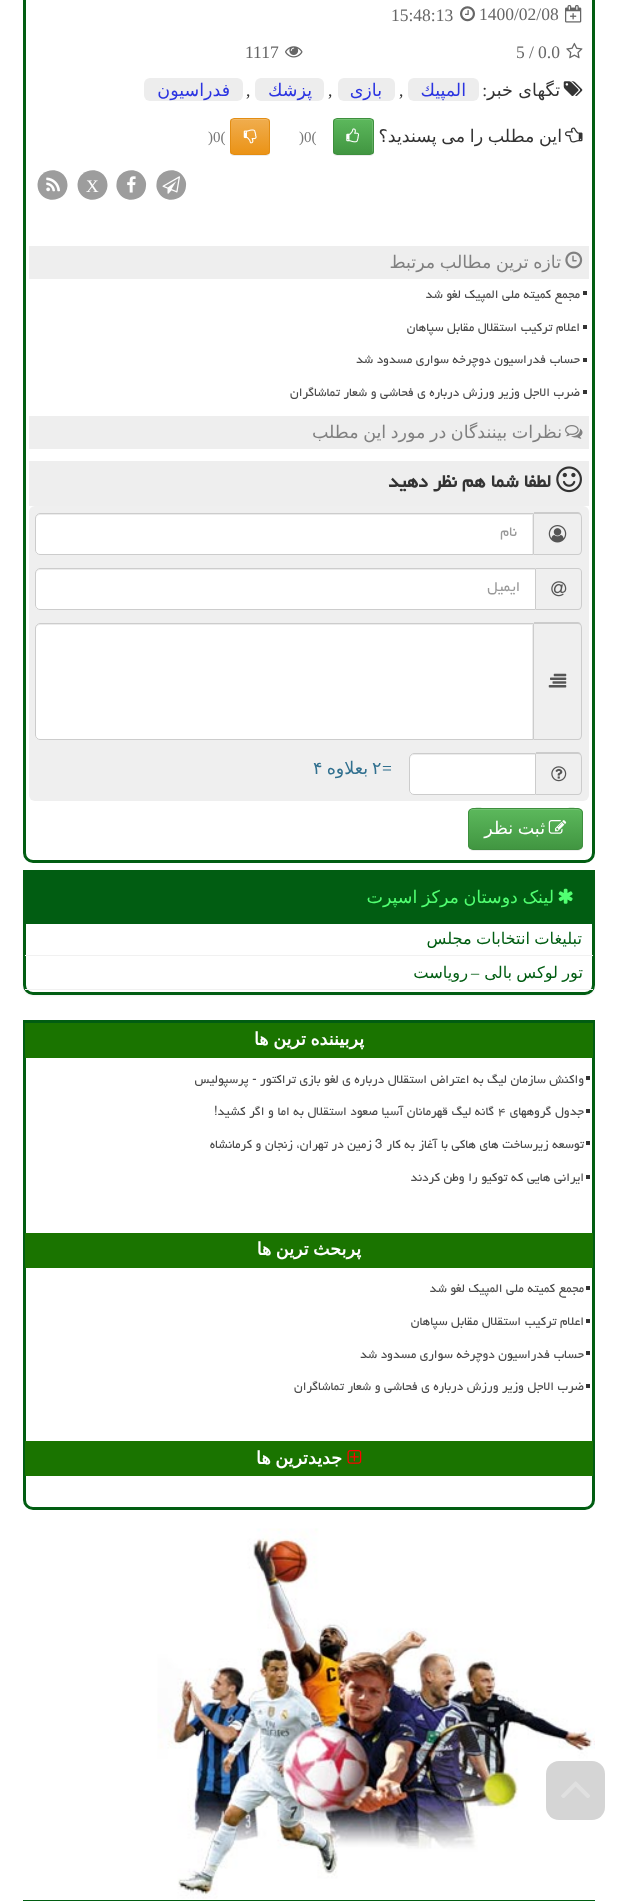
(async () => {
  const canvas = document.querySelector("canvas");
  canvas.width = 617;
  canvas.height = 1901;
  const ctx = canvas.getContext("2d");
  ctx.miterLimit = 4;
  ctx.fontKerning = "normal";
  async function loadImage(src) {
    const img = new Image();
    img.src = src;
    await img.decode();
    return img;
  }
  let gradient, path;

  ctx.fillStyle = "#ffffff";
  ctx.fillRect(0, 0, 617, 1901);
  path = new Path2D("M24.5-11.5H593.5V853C593.5 857.5 589.5 861.5 585 861.5H33C28.5 861.5 24.5 857.5 24.5 853Z");
  ctx.strokeStyle = "#015d12";
  ctx.lineWidth = 3;
  ctx.stroke(path);
  ctx.drawImage(await loadImage("img/1.png"), 565, 5, 17, 18);
  ctx.drawImage(await loadImage("img/2.png"), 460, 6, 15, 16);
  ctx.drawImage(await loadImage("img/3.png"), 566, 42, 17, 17);
  ctx.drawImage(await loadImage("img/4.png"), 285, 46, 18, 12);
  ctx.drawImage(await loadImage("img/5.png"), 563, 81, 20, 15);
  ctx.fillStyle = "#ededed";
  ctx.beginPath();
  ctx.roundRect(408, 78, 71, 23, 6);
  ctx.fill();
  ctx.beginPath();
  ctx.roundRect(338, 78, 57, 23, 6);
  ctx.fill();
  ctx.beginPath();
  ctx.roundRect(255, 78, 69, 23, 6);
  ctx.fill();
  ctx.beginPath();
  ctx.roundRect(144, 78, 99, 23, 6);
  ctx.fill();
  ctx.drawImage(await loadImage("img/6.png"), 565, 127, 18, 16);
  ctx.fillStyle = "rgba(0, 0, 0, 0.07)";
  ctx.filter = "blur(0.5px)";
  ctx.beginPath();
  ctx.roundRect(333, 119, 41, 37, 4);
  ctx.fill();
  ctx.filter = "none";
  ctx.save();
  ctx.beginPath();
  ctx.roundRect(333, 118, 41, 37, 4);
  ctx.clip();
  gradient = ctx.createLinearGradient(353, 119, 353, 154);
  gradient.addColorStop(0, "#5cb85c");
  gradient.addColorStop(1, "#419641");
  ctx.fillStyle = gradient;
  ctx.fillRect(333, 119, 41, 35);
  ctx.restore();
  ctx.fillStyle = "rgba(255, 255, 255, 0.15)";
  path = new Path2D("M336 120H370C371 120 372 121 372 122V152L371.5 153.5C374 152.5 373 148 373 146.5V121L372.5 119.5L371 119H336.5C335 119 334 120.5 334 122C334 121 335 120 336 120Z");
  ctx.fill(path);
  ctx.beginPath();
  ctx.roundRect(333.5, 118.5, 40, 36, 3.5);
  ctx.strokeStyle = "#3e8f3e";
  ctx.lineWidth = 1;
  ctx.stroke();
  ctx.drawImage(await loadImage("img/7.png"), 346, 128, 14, 15);
  ctx.fillStyle = "rgba(0, 0, 0, 0.07)";
  ctx.filter = "blur(0.5px)";
  ctx.beginPath();
  ctx.roundRect(230, 119, 40, 37, 4);
  ctx.fill();
  ctx.filter = "none";
  ctx.save();
  ctx.beginPath();
  ctx.roundRect(230, 118, 40, 37, 4);
  ctx.clip();
  gradient = ctx.createLinearGradient(250, 119, 250, 154);
  gradient.addColorStop(0, "#f0ad4e");
  gradient.addColorStop(1, "#eb9316");
  ctx.fillStyle = gradient;
  ctx.fillRect(230, 119, 40, 35);
  ctx.restore();
  ctx.fillStyle = "#f2b968";
  path = new Path2D("M234 120H266C268 120 269 121 269 122C269 117.5 264 119 261 119H239C236 119 231 117.5 231 122C231 121 232 120 234 120Z");
  ctx.fill(path);
  ctx.beginPath();
  ctx.roundRect(230.5, 118.5, 39, 36, 3.5);
  ctx.strokeStyle = "#e38d13";
  ctx.stroke();
  ctx.drawImage(await loadImage("img/8.png"), 243, 129, 14, 15);
  ctx.fillStyle = "#9d9d9d";
  path = new Path2D("M184 177.5C185.5 180 186.5 183 186 186C185.5 200.5 165.5 205 158.5 192.5C157 190 156 187 156.5 184C157 169.5 177 165 184 177.5Z");
  ctx.fill(path);
  ctx.drawImage(await loadImage("img/9.png"), 162, 176, 18, 18);
  path = new Path2D("M144 177.5C145.5 180 146.5 183 146 186C145.5 200.5 125.5 205 118.5 192.5C117 190 116 187 116.5 184C117 169.5 137 165 144 177.5Z");
  ctx.fill(path);
  ctx.drawImage(await loadImage("img/10.png"), 127, 176, 9, 17);
  path = new Path2D("M105.5 177.5C107 180 107.5 183 107.5 186C106.5 200.5 87 205 79.5 192.5C78 190 77.5 187 77.5 184C78.5 169.5 98 165 105.5 177.5Z");
  ctx.fill(path);
  path = new Path2D("M65.5 177.5C67 180 67.5 183 67.5 186C66.5 200.5 47 205 39.5 192.5C38 190 37.5 187 37.5 184C38.5 169.5 58 165 65.5 177.5Z");
  ctx.fill(path);
  ctx.drawImage(await loadImage("img/11.png"), 46, 177, 14, 15);
  ctx.fillStyle = "#eeeeee";
  ctx.fillRect(29, 246, 560, 33);
  ctx.drawImage(await loadImage("img/12.png"), 565, 251, 18, 18);
  for (const [x, y, w, h, color] of [
    [583, 291, 4, 4, "#333333"],
    [583, 325, 4, 4, "#333333"],
    [583, 358, 4, 4, "#333333"],
    [583, 390, 4, 4, "#333333"],
    [29, 416, 560, 33, "#eeeeee"],
  ]) {
    ctx.fillStyle = color;
    ctx.fillRect(x, y, w, h);
  }
  ctx.drawImage(await loadImage("img/13.png"), 565, 425, 18, 14);
  ctx.fillRect(29, 461, 560, 45);
  ctx.drawImage(await loadImage("img/14.png"), 556, 466, 26, 27);
  ctx.fillStyle = "#efefef";
  ctx.beginPath();
  ctx.roundRect(29, 506, 560, 295, 6);
  ctx.fill();
  ctx.fillStyle = "#cccccc";
  path = new Path2D("M534 512H578C580 512 582 515 582 518V550C582 553 580 555 578 555H534ZM534 514H578C580 514 581 515 581 518V550C581 552 580 554 578 554H534Z");
  ctx.fill(path, "evenodd");
  ctx.drawImage(await loadImage("img/15.png"), 548, 525, 19, 18);
  ctx.fillStyle = "#ffffff";
  ctx.beginPath();
  ctx.roundRect(35, 513, 499, 42, [5, 0, 0, 5]);
  ctx.fill();
  ctx.fillStyle = "#ececec";
  path = new Path2D("M40 515H532V554H533V514H40C37 514 36 516 36 519C36 517 38 515 40 515Z");
  ctx.fill(path);
  ctx.beginPath();
  ctx.roundRect(35.5, 513.5, 498, 41, [4.5, 0, 0, 4.5]);
  ctx.strokeStyle = "#cccccc";
  ctx.stroke();
  ctx.fillStyle = "#cccccc";
  path = new Path2D("M536 568H578C580 568 582 570 582 572V605C582 608 580 610 578 610H536ZM536 569H578C580 569 581 570 581 572V605C581 607 580 609 578 609H536Z");
  ctx.fill(path, "evenodd");
  ctx.drawImage(await loadImage("img/16.png"), 551, 581, 16, 16);
  ctx.fillStyle = "#ffffff";
  ctx.beginPath();
  ctx.roundRect(35, 568, 501, 42, [5, 0, 0, 5]);
  ctx.fill();
  ctx.fillStyle = "#ececec";
  path = new Path2D("M40 570H535V569H40C37 569 36 571 36 574C36 572 38 570 40 570Z");
  ctx.fill(path);
  ctx.beginPath();
  ctx.roundRect(35.5, 568.5, 500, 41, [4.5, 0, 0, 4.5]);
  ctx.stroke();
  ctx.fillStyle = "#cccccc";
  path = new Path2D("M534 622H578C580 622 582 625 582 628V735C582 738 580 740 578 740H534ZM534 624H578C580 624 581 625 581 628V735C581 737 580 739 578 739H534Z");
  ctx.fill(path, "evenodd");
  ctx.drawImage(await loadImage("img/17.png"), 548, 673, 19, 15);
  ctx.fillStyle = "#ffffff";
  ctx.beginPath();
  ctx.roundRect(35, 623, 499, 117, [5, 0, 0, 5]);
  ctx.fill();
  ctx.fillStyle = "#ececec";
  path = new Path2D("M40 625H532V739H533V624H40C37 624 36 626 36 629C36 627 38 625 40 625Z");
  ctx.fill(path);
  ctx.beginPath();
  ctx.roundRect(35.5, 623.5, 498, 116, [4.5, 0, 0, 4.5]);
  ctx.stroke();
  ctx.fillStyle = "#cccccc";
  path = new Path2D("M536 752H578C580 752 582 755 582 758V790C582 793 580 795 578 795H536ZM536 754H578C580 754 581 755 581 758V790C581 792 580 794 578 794H536Z");
  ctx.fill(path, "evenodd");
  ctx.drawImage(await loadImage("img/18.png"), 551, 766, 16, 16);
  ctx.fillStyle = "#ffffff";
  ctx.beginPath();
  ctx.roundRect(409, 753, 127, 42, [5, 0, 0, 5]);
  ctx.fill();
  ctx.fillStyle = "#ececec";
  path = new Path2D("M414 755H535V754H414C412 754 410 756 410 758V759C410 757 412 755 414 755Z");
  ctx.fill(path);
  ctx.beginPath();
  ctx.roundRect(409.5, 753.5, 126, 41, [4.5, 0, 0, 4.5]);
  ctx.stroke();
  ctx.fillStyle = "rgba(0, 0, 0, 0.07)";
  ctx.filter = "blur(0.5px)";
  ctx.beginPath();
  ctx.roundRect(468, 809, 115, 42, 5);
  ctx.fill();
  ctx.filter = "none";
  ctx.save();
  ctx.beginPath();
  ctx.roundRect(468, 808, 115, 42, 5);
  ctx.clip();
  gradient = ctx.createLinearGradient(525, 809, 525, 849);
  gradient.addColorStop(0, "#5cb85c");
  gradient.addColorStop(1, "#419641");
  ctx.fillStyle = gradient;
  ctx.fillRect(468, 809, 115, 40);
  ctx.restore();
  ctx.fillStyle = "#74c374";
  path = new Path2D("M472 810H578C580 810 581 812 581 814C581 804 563 809 560 809H490C487 809 469 804 469 814C469 812 470 810 472 810Z");
  ctx.fill(path);
  ctx.beginPath();
  ctx.roundRect(468.5, 808.5, 114, 41, 4.5);
  ctx.strokeStyle = "#3e8f3e";
  ctx.stroke();
  ctx.drawImage(await loadImage("img/19.png"), 548, 820, 19, 14);
  ctx.fillStyle = "rgba(0, 0, 0, 0.05)";
  ctx.filter = "blur(1px)";
  ctx.beginPath();
  ctx.roundRect(23, 871, 572, 125, 10);
  ctx.fill();
  ctx.filter = "none";
  ctx.fillStyle = "#ffffff";
  ctx.beginPath();
  ctx.roundRect(24.5, 871.5, 569, 122, [0, 0, 8.5, 8.5]);
  ctx.fill();
  ctx.strokeStyle = "#015d12";
  ctx.lineWidth = 3;
  ctx.stroke();
  ctx.fillStyle = "#015d12";
  ctx.fillRect(26, 873, 566, 51);
  ctx.drawImage(await loadImage("img/20.png"), 558, 888, 15, 16);
  ctx.fillStyle = "#f1f1f1";
  ctx.fillRect(25, 955, 568, 1);
  ctx.fillRect(25, 989, 568, 1);
  ctx.beginPath();
  ctx.roundRect(24.5, 1021.5, 569, 487, [0, 0, 8.5, 8.5]);
  ctx.stroke();
  for (const [x, y, w, h, color] of [
    [25, 1023, 568, 35, "#1a7400"],
    [586, 1076, 4, 4, "#333333"],
    [586, 1109, 4, 4, "#333333"],
    [586, 1141, 4, 4, "#333333"],
    [586, 1175, 4, 4, "#333333"],
    [25, 1233, 568, 35, "#1a7400"],
    [586, 1286, 4, 4, "#333333"],
    [586, 1319, 4, 4, "#333333"],
    [586, 1351, 4, 4, "#333333"],
    [586, 1384, 4, 4, "#333333"],
    [25, 1441, 568, 35, "#1a7400"],
  ]) {
    ctx.fillStyle = color;
    ctx.fillRect(x, y, w, h);
  }
  ctx.drawImage(await loadImage("img/21.png"), 347, 1450, 15, 14);
  ctx.drawImage(await loadImage("img/22.png"), 157, 1528, 438, 371);
  ctx.strokeRect(24.5, 1901.5, 569, 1);
  ctx.fillStyle = "#d5d5d5";
  ctx.beginPath();
  ctx.roundRect(546, 1761, 59, 59, 13);
  ctx.fill();
  ctx.drawImage(await loadImage("img/23.png"), 561, 1781, 29, 17);
  ctx.font = "17.5px Liberation Serif";
  ctx.fillStyle = "#666666";
  for (const [text, x, y] of [
    ["1400/02/08", 479, 20],
    ["15:48:13", 391, 21],
    ["0.0", 538, 58],
    ["/", 529, 58],
    ["5", 516, 58],
    ["1117", 245, 58],
  ]) {
    ctx.fillText(text, x, y);
  }
  ctx.direction = "rtl";
  ctx.font = "17.5px DejaVu Sans";
  ctx.fillStyle = "#333333";
  ctx.fillText("تگهای خبر", 560, 96);
  ctx.font = "17.5px Liberation Serif";
  ctx.fillText(":", 487, 96);
  ctx.font = "17.5px DejaVu Sans";
  ctx.fillStyle = "#2b34e1";
  ctx.fillText("المپیك", 466, 96);
  ctx.direction = "ltr";
  ctx.font = "17.5px Liberation Serif";
  ctx.fillStyle = "#333333";
  ctx.fillText(",", 399, 96);
  ctx.direction = "rtl";
  ctx.font = "17.5px DejaVu Sans";
  ctx.fillStyle = "#2b34e1";
  ctx.fillText("بازی", 382, 96);
  ctx.direction = "ltr";
  ctx.font = "17.5px Liberation Serif";
  ctx.fillStyle = "#333333";
  ctx.fillText(",", 328, 96);
  ctx.direction = "rtl";
  ctx.font = "17.5px DejaVu Sans";
  ctx.fillStyle = "#2b34e1";
  ctx.fillText("پزشك", 312, 96);
  ctx.direction = "ltr";
  ctx.font = "17.5px Liberation Serif";
  ctx.fillStyle = "#333333";
  ctx.fillText(",", 246, 96);
  ctx.direction = "rtl";
  ctx.font = "17.5px DejaVu Sans";
  ctx.fillStyle = "#2b34e1";
  ctx.fillText("فدراسیون", 230, 96);
  ctx.wordSpacing = "-1px";
  ctx.fillStyle = "#333333";
  ctx.fillText("این مطلب را می پسندید؟", 562, 142);
  ctx.wordSpacing = "0px";
  ctx.direction = "ltr";
  ctx.font = "15px Liberation Serif";
  ctx.fillStyle = "#777777";
  ctx.fillText(")0(", 299, 142);
  ctx.fillText(")0(", 208, 142);
  ctx.font = "17.5px Liberation Serif";
  ctx.fillStyle = "#ffffff";
  ctx.fillText("X", 86, 192);
  ctx.wordSpacing = "-1px";
  ctx.direction = "rtl";
  ctx.font = "17.5px DejaVu Sans";
  ctx.fillStyle = "#808080";
  ctx.fillText("تازه ترین مطالب مرتبط", 561, 268);
  ctx.wordSpacing = "0px";
  ctx.font = "15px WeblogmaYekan";
  ctx.fillStyle = "#4a4a4a";
  for (const [text, x, y] of [
    ["مجمع کمیته ملی المپیک لغو شد", 580, 298],
    ["اعلام ترکیب استقلال مقابل سپاهان", 580, 331],
    ["حساب فدراسیون دوچرخه سواری مسدود شد", 580, 363],
    ["ضرب الاجل وزیر ورزش درباره ی فحاشی و شعار تماشاگران", 580, 396],
  ]) {
    ctx.fillText(text, x, y);
  }
  ctx.wordSpacing = "-1px";
  ctx.font = "17.5px DejaVu Sans";
  ctx.fillStyle = "#808080";
  ctx.fillText("نظرات بینندگان در مورد این مطلب", 562, 438);
  ctx.wordSpacing = "0px";
  ctx.font = "bold 22.5px WeblogmaYekan";
  ctx.fillStyle = "#333333";
  ctx.fillText("لطفا شما هم", 551, 487);
  ctx.fillText("نظر دهید", 457, 487);
  ctx.font = "17.5px WeblogmaYekan";
  ctx.fillStyle = "#999999";
  ctx.fillText("نام", 517, 536);
  ctx.fillText("ایمیل", 520, 591);
  ctx.direction = "ltr";
  ctx.font = "17.5px Liberation Serif";
  ctx.fillStyle = "#31708f";
  ctx.fillText("=", 382, 774);
  ctx.font = "17.5px DejaVu Sans";
  ctx.fillText("۲", 372, 774);
  ctx.direction = "rtl";
  ctx.fillText("بعلاوه", 368, 774);
  ctx.direction = "ltr";
  ctx.fillText("۴", 313, 774);
  ctx.wordSpacing = "-1px";
  ctx.direction = "rtl";
  ctx.fillStyle = "#ffffff";
  ctx.fillText("ثبت نظر", 545, 834);
  ctx.fillStyle = "#51ff72";
  ctx.fillText("لینک دوستان مركز اسپرت", 554, 903);
  ctx.font = "16.25px DejaVu Sans";
  ctx.fillStyle = "#015d12";
  ctx.fillText("تبلیغات انتخابات مجلس", 582, 944);
  ctx.fillText("تور لوکس بالی", 583, 978);
  ctx.wordSpacing = "0px";
  ctx.font = "16.25px Liberation Serif";
  ctx.fillText("–", 479, 978);
  ctx.font = "16.25px DejaVu Sans";
  ctx.fillText("رویاست", 468, 978);
  ctx.wordSpacing = "-1px";
  ctx.font = "bold 17.5px DejaVu Sans";
  ctx.fillStyle = "#ffffff";
  ctx.fillText("پربیننده ترین ها", 364, 1045);
  ctx.wordSpacing = "0px";
  ctx.font = "15px WeblogmaYekan";
  ctx.fillStyle = "#4a4a4a";
  ctx.fillText("واکنش سازمان لیگ به اعتراض استقلال درباره ی لغو بازی تراکتور - پرسپولیس", 584, 1083);
  ctx.fillText("جدول گروههای", 584, 1115);
  ctx.direction = "ltr";
  ctx.fillText("۴", 498, 1115);
  ctx.direction = "rtl";
  ctx.fillText("گانه لیگ قهرمانان آسیا صعود استقلال به اما و اگر کشید!", 494, 1115);
  ctx.fillText("توسعه زیرساخت های هاکی با آغاز به کار", 584, 1148);
  ctx.direction = "ltr";
  ctx.fillText("3", 375, 1148);
  ctx.direction = "rtl";
  ctx.fillText("زمین در تهران، زنجان و کرمانشاه", 372, 1148);
  ctx.fillText("ایرانی هایی که توکیو را وطن کردند", 584, 1181);
  ctx.wordSpacing = "-1px";
  ctx.font = "bold 17.5px DejaVu Sans";
  ctx.fillStyle = "#ffffff";
  ctx.fillText("پربحث ترین ها", 361, 1255);
  ctx.wordSpacing = "0px";
  ctx.font = "15px WeblogmaYekan";
  ctx.fillStyle = "#4a4a4a";
  for (const [text, x, y] of [
    ["مجمع کمیته ملی المپیک لغو شد", 584, 1292],
    ["اعلام ترکیب استقلال مقابل سپاهان", 584, 1325],
    ["حساب فدراسیون دوچرخه سواری مسدود شد", 584, 1358],
    ["ضرب الاجل وزیر ورزش درباره ی فحاشی و شعار تماشاگران", 584, 1390],
  ]) {
    ctx.fillText(text, x, y);
  }
  ctx.wordSpacing = "-1px";
  ctx.font = "bold 17.5px DejaVu Sans";
  ctx.fillStyle = "#ffffff";
  ctx.fillText("جدیدترین ها", 342, 1464);
})();
